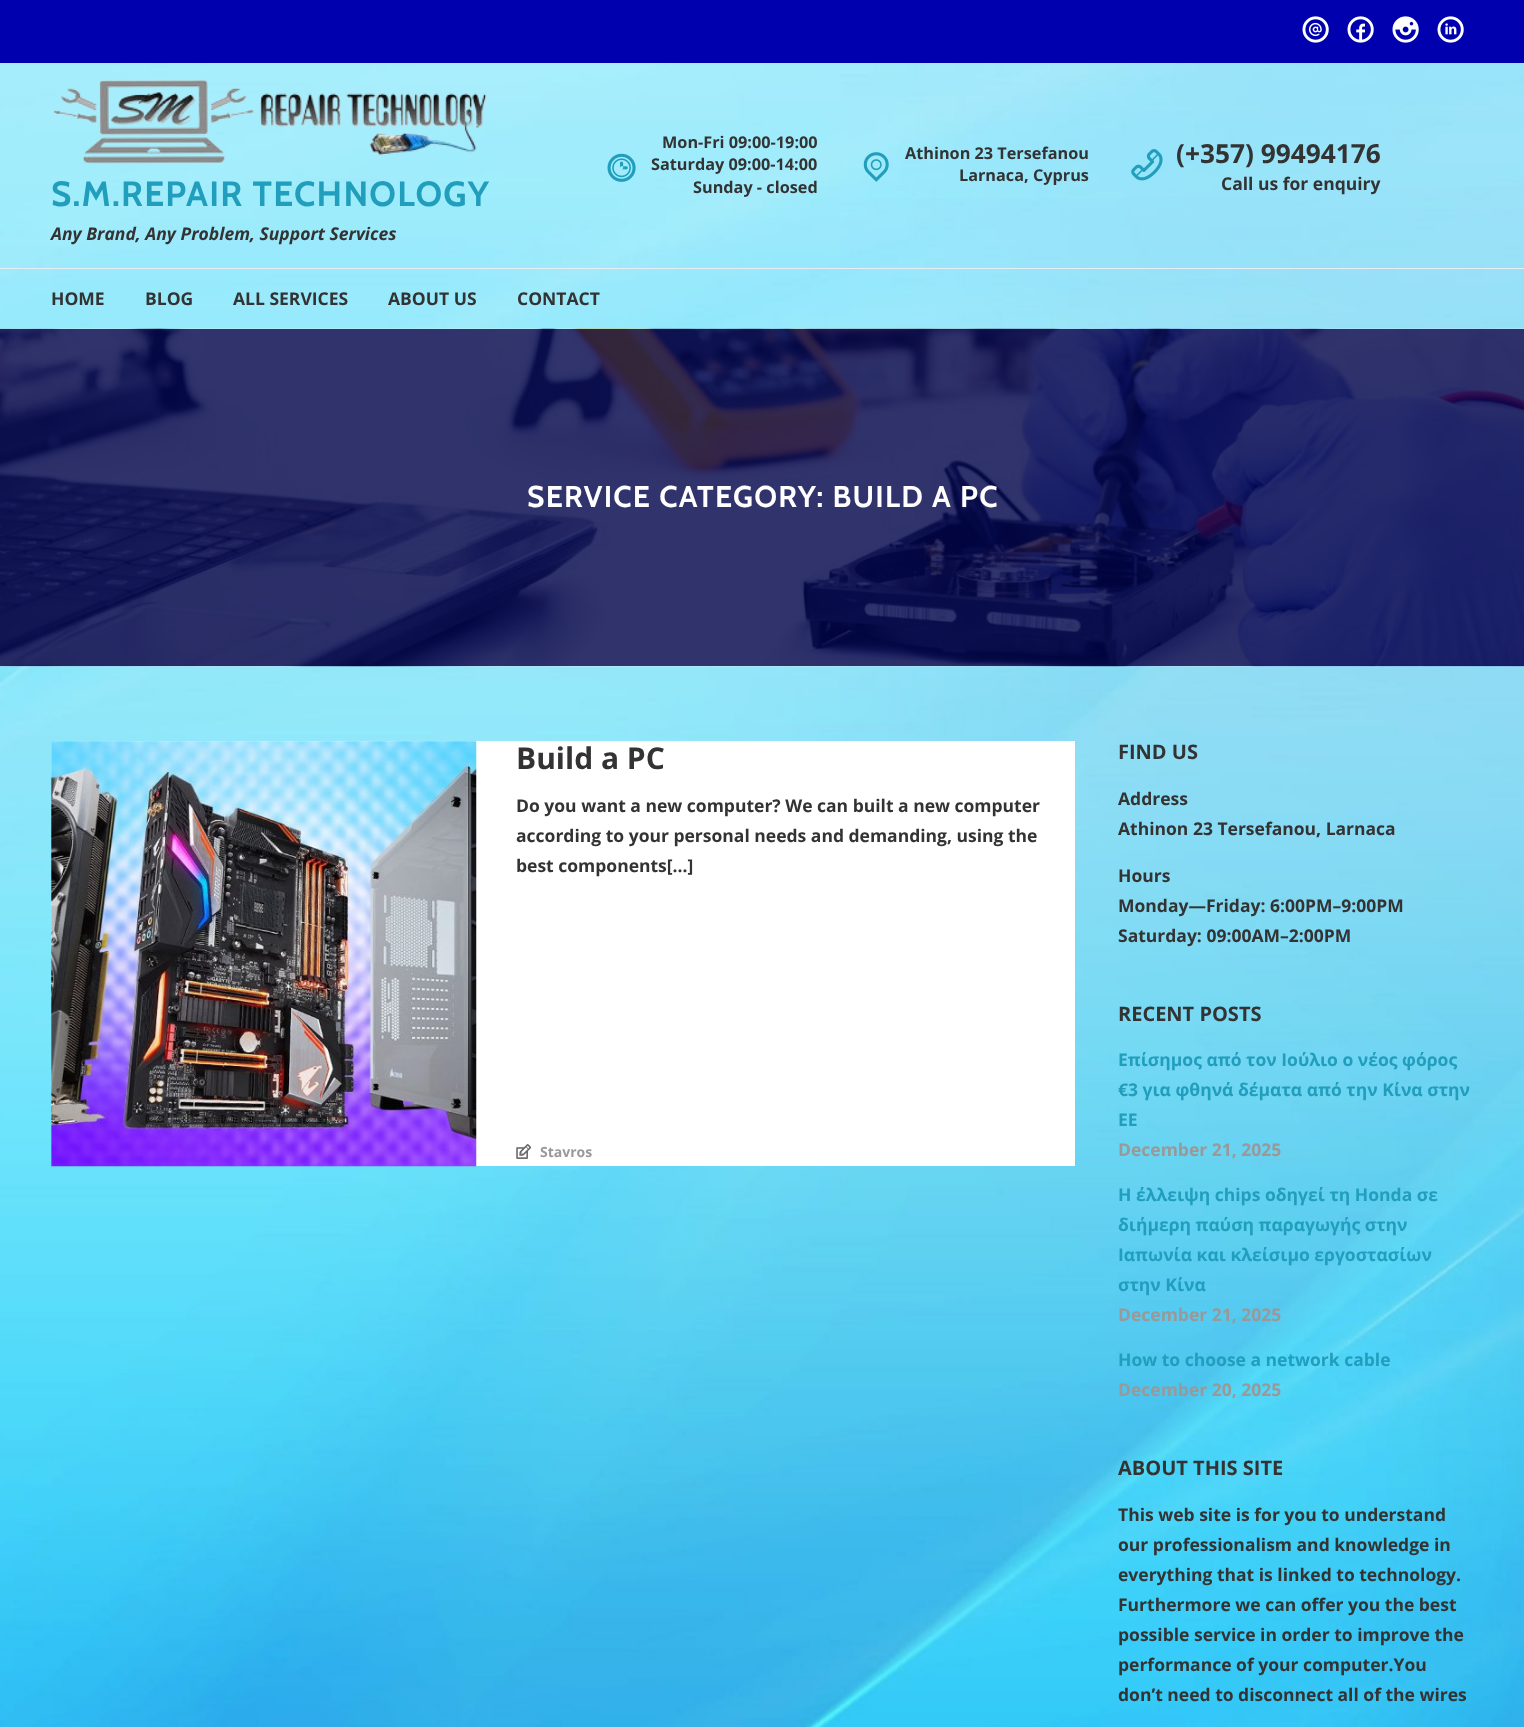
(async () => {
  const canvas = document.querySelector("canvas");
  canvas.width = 1524;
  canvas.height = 1727;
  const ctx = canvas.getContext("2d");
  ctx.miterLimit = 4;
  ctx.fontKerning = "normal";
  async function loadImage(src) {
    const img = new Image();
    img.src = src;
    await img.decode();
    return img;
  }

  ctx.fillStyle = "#ffffff";
  ctx.fillRect(0, 0, 1524, 1727);
  ctx.drawImage(await loadImage("img/1.png"), 0, 63, 1524, 1664);
  ctx.fillStyle = "#0000af";
  ctx.fillRect(0, 0, 1524, 63);
  ctx.drawImage(await loadImage("img/2.png"), 1302, 16, 27, 27);
  ctx.drawImage(await loadImage("img/3.png"), 1347, 16, 27, 27);
  ctx.drawImage(await loadImage("img/4.png"), 1392, 16, 27, 27);
  ctx.drawImage(await loadImage("img/5.png"), 1437, 16, 27, 27);
  ctx.drawImage(await loadImage("img/6.png"), 607, 153, 29, 29);
  ctx.drawImage(await loadImage("img/7.png"), 863, 152, 26, 30);
  ctx.drawImage(await loadImage("img/8.png"), 1131, 149, 32, 32);
  ctx.drawImage(await loadImage("img/9.png"), 53, 80, 435, 84);
  ctx.fillStyle = "#e8edf3";
  ctx.fillRect(0, 268, 1524, 1);
  ctx.drawImage(await loadImage("img/10.png"), 0, 328, 1524, 339);
  ctx.fillStyle = "#ffffff";
  ctx.fillRect(476, 741, 599, 425);
  ctx.fillStyle = "#eeeeee";
  ctx.fillRect(51, 741, 425, 425);
  ctx.drawImage(await loadImage("img/11.png"), 51, 741, 426, 426);
  ctx.drawImage(await loadImage("img/12.png"), 516, 1144, 16, 15);
  ctx.font = "bold 16.25px Open Sans";
  ctx.fillStyle = "#333333";
  for (const [text, x, y] of [
    ["Mon-Fri 09:00-19:00", 662, 148],
    ["Saturday 09:00-14:00", 651, 170],
    ["Sunday - closed", 693, 193],
    ["Athinon 23 Tersefanou", 905, 159],
    ["Larnaca, Cyprus", 959, 181],
  ]) {
    ctx.fillText(text, x, y);
  }
  ctx.font = "bold 26.25px Open Sans";
  ctx.fillText("(+357) 99494176", 1176, 163);
  ctx.font = "bold 17.5px Open Sans";
  ctx.fillText("Call us for enquiry", 1221, 190);
  ctx.letterSpacing = "1.25px";
  ctx.font = "bold 35px Cabin";
  ctx.fillStyle = "#219ebc";
  ctx.fillText("S.M.REPAIR TECHNOLOGY", 51, 206);
  ctx.letterSpacing = "0px";
  ctx.font = "italic bold 17.5px Open Sans";
  ctx.fillStyle = "#333333";
  ctx.fillText("Any Brand, Any Problem, Support Services", 51, 240);
  ctx.font = "bold 17.5px Open Sans";
  for (const [text, x, y] of [
    ["HOME", 51, 305],
    ["BLOG", 145, 305],
    ["ALL SERVICES", 233, 305],
    ["ABOUT US", 388, 305],
    ["CONTACT", 517, 305],
  ]) {
    ctx.fillText(text, x, y);
  }
  ctx.letterSpacing = "1.25px";
  ctx.font = "bold 30px Cabin";
  ctx.fillStyle = "#ffffff";
  ctx.fillText("SERVICE CATEGORY: BUILD A PC", 527, 507);
  ctx.letterSpacing = "0px";
  ctx.font = "bold 30px Open Sans";
  ctx.fillStyle = "#333333";
  ctx.fillText("Build a PC", 516, 769);
  ctx.font = "bold 17.5px Open Sans";
  for (const [text, x, y] of [
    ["Do you want a new computer? We can built a new computer", 516, 812],
    ["according to your personal needs and demanding, using the", 516, 842],
    ["best components[…]", 516, 872],
  ]) {
    ctx.fillText(text, x, y);
  }
  ctx.font = "bold 14px Open Sans";
  ctx.fillStyle = "#999999";
  ctx.fillText("Stavros", 540, 1157);
  ctx.font = "bold 20px Open Sans";
  ctx.fillStyle = "#333333";
  ctx.fillText("FIND US", 1118, 759);
  ctx.font = "bold 17.5px Open Sans";
  for (const [text, x, y] of [
    ["Address", 1118, 805],
    ["Athinon 23 Tersefanou, Larnaca", 1118, 835],
    ["Hours", 1118, 882],
    ["Monday—Friday: 6:00PM–9:00PM", 1118, 912],
    ["Saturday: 09:00AM–2:00PM", 1118, 942],
  ]) {
    ctx.fillText(text, x, y);
  }
  ctx.font = "bold 20px Open Sans";
  ctx.fillText("RECENT POSTS", 1118, 1021);
  ctx.font = "bold 17.5px Open Sans";
  ctx.fillStyle = "#219ebc";
  for (const [text, x, y] of [
    ["Επίσημος από τον Ιούλιο ο νέος φόρος", 1118, 1066],
    ["€3 για φθηνά δέματα από την Κίνα στην", 1118, 1096],
    ["ΕΕ", 1118, 1126],
  ]) {
    ctx.fillText(text, x, y);
  }
  ctx.fillStyle = "#999999";
  ctx.fillText("December 21, 2025", 1118, 1156);
  ctx.fillStyle = "#219ebc";
  for (const [text, x, y] of [
    ["Η έλλειψη chips οδηγεί τη Honda σε", 1118, 1201],
    ["διήμερη παύση παραγωγής στην", 1118, 1231],
    ["Ιαπωνία και κλείσιμο εργοστασίων", 1118, 1261],
    ["στην Κίνα", 1118, 1291],
  ]) {
    ctx.fillText(text, x, y);
  }
  ctx.fillStyle = "#999999";
  ctx.fillText("December 21, 2025", 1118, 1321);
  ctx.fillStyle = "#219ebc";
  ctx.fillText("How to choose a network cable", 1118, 1366);
  ctx.fillStyle = "#999999";
  ctx.fillText("December 20, 2025", 1118, 1396);
  ctx.font = "bold 20px Open Sans";
  ctx.fillStyle = "#333333";
  ctx.fillText("ABOUT THIS SITE", 1118, 1475);
  ctx.font = "bold 17.5px Open Sans";
  for (const [text, x, y] of [
    ["This web site is for you to understand", 1118, 1521],
    ["our professionalism and knowledge in", 1118, 1551],
    ["everything that is linked to technology.", 1118, 1581],
    ["Furthermore we can offer you the best", 1118, 1611],
    ["possible service in order to improve the", 1118, 1641],
    ["performance of your computer.You", 1118, 1671],
    ["don’t need to disconnect all of the wires", 1118, 1701],
  ]) {
    ctx.fillText(text, x, y);
  }
})();
